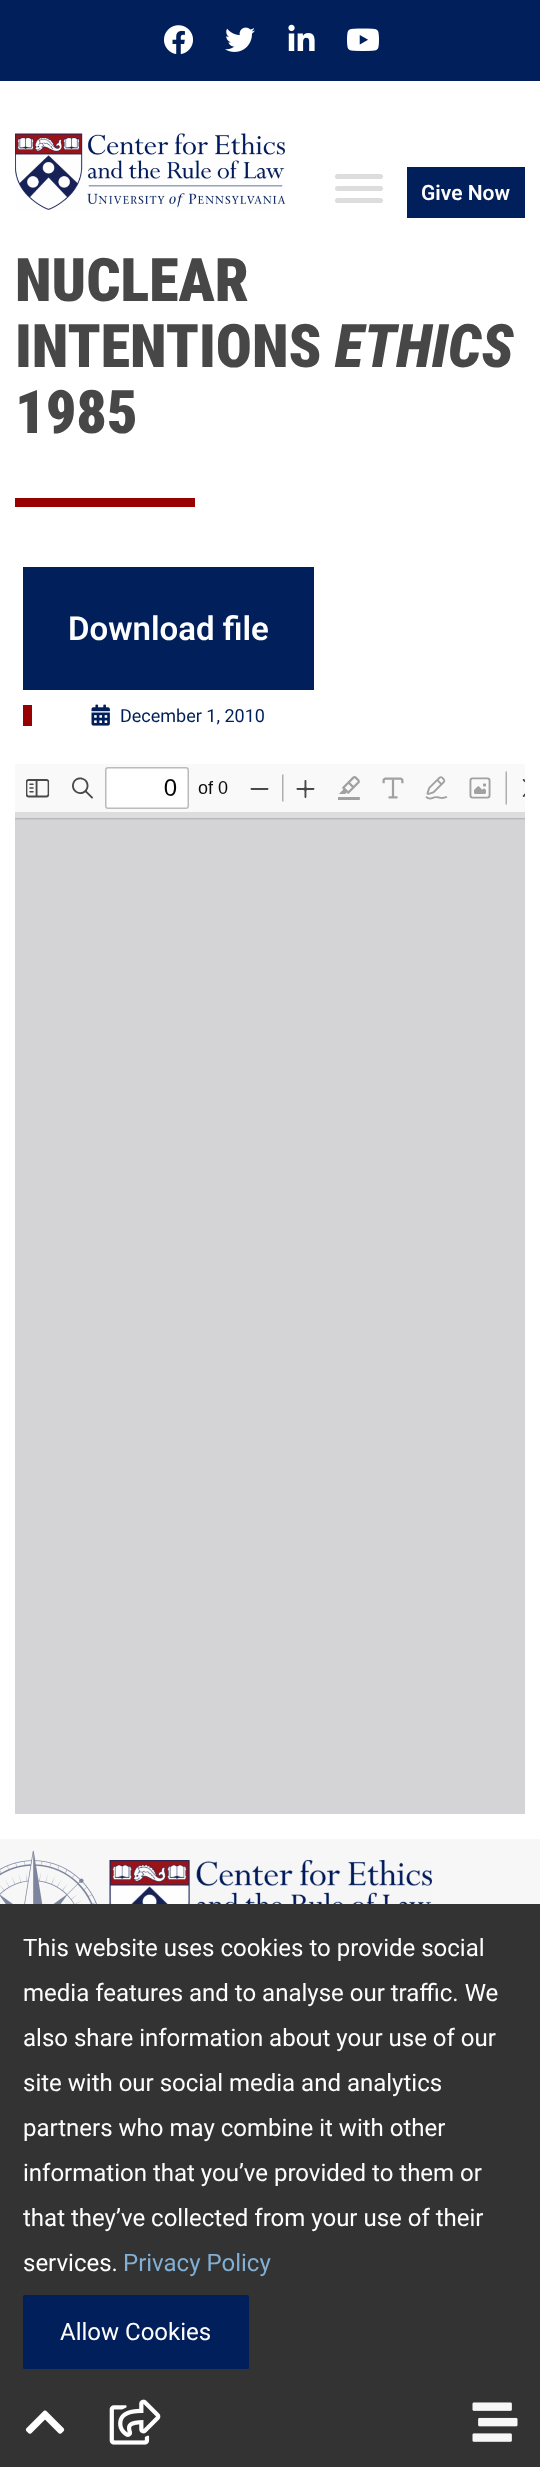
(async () => {
  const canvas = document.querySelector("canvas");
  canvas.width = 540;
  canvas.height = 2467;
  const ctx = canvas.getContext("2d");
  ctx.miterLimit = 4;
  ctx.fontKerning = "normal";
  async function loadImage(src) {
    const img = new Image();
    img.src = src;
    await img.decode();
    return img;
  }

  ctx.fillStyle = "#ffffff";
  ctx.fillRect(0, 0, 540, 2467);
  ctx.fillStyle = "#011f5b";
  ctx.fillRect(0, 0, 540, 81);
  ctx.drawImage(await loadImage("img/1.png"), 164, 25, 29, 29);
  ctx.drawImage(await loadImage("img/2.png"), 225, 27, 30, 25);
  ctx.drawImage(await loadImage("img/3.png"), 288, 24, 27, 27);
  ctx.drawImage(await loadImage("img/4.png"), 347, 28, 32, 23);
  ctx.drawImage(await loadImage("img/5.png"), 15, 133, 270, 77);
  ctx.fillStyle = "#dddddd";
  ctx.beginPath();
  ctx.roundRect(335, 174, 48, 5, 2.5);
  ctx.fill();
  ctx.beginPath();
  ctx.roundRect(335, 186, 48, 5, 2.5);
  ctx.fill();
  ctx.beginPath();
  ctx.roundRect(335, 198, 48, 5, 2.5);
  ctx.fill();
  for (const [x, y, w, h, color] of [
    [407, 167, 118, 51, "#011f5b"],
    [15, 498, 180, 9, "#990000"],
    [23, 567, 291, 123, "#011f5b"],
    [23, 705, 9, 21, "#990000"],
  ]) {
    ctx.fillStyle = color;
    ctx.fillRect(x, y, w, h);
  }
  ctx.drawImage(await loadImage("img/6.png"), 91, 704, 19, 22);
  ctx.drawImage(await loadImage("img/7.png"), 15, 764, 510, 1050);
  ctx.fillStyle = "#f7f7f7";
  ctx.fillRect(0, 1839, 540, 65);
  ctx.drawImage(await loadImage("img/8.png"), 0, 1850, 97, 54);
  ctx.drawImage(await loadImage("img/9.png"), 109, 1860, 323, 44);
  ctx.fillStyle = "#333333";
  ctx.fillRect(0, 1904, 540, 563);
  ctx.fillStyle = "#011f5b";
  ctx.beginPath();
  ctx.roundRect(23, 2295, 226, 74, 1.5);
  ctx.fill();
  ctx.drawImage(await loadImage("img/10.png"), 25, 2410, 40, 24);
  ctx.drawImage(await loadImage("img/11.png"), 109, 2399, 52, 46);
  ctx.drawImage(await loadImage("img/12.png"), 472, 2402, 46, 40);
  ctx.font = "600 21px Roboto";
  ctx.fillStyle = "#fefefe";
  ctx.fillText("Give Now", 421, 200);
  ctx.font = "900 60px Roboto Condensed";
  ctx.fillStyle = "#474747";
  ctx.fillText("NUCLEAR", 15, 301);
  ctx.fillText("INTENTIONS", 15, 367);
  ctx.font = "italic 900 60px Roboto Condensed";
  ctx.fillText("ETHICS", 335, 367);
  ctx.font = "900 60px Roboto Condensed";
  ctx.fillText("1985", 15, 433);
  ctx.font = "600 33px Roboto";
  ctx.fillStyle = "#fefefe";
  ctx.fillText("Download file", 68, 640);
  ctx.font = "18px Roboto";
  ctx.fillStyle = "#011f5b";
  ctx.fillText("December 1, 2010", 120, 722);
  ctx.font = "24px Roboto";
  ctx.fillStyle = "#fefefe";
  for (const [text, x, y] of [
    ["This website uses cookies to provide social", 23, 1956],
    ["media features and to analyse our traffic. We", 23, 2001],
    ["also share information about your use of our", 23, 2046],
    ["site with our social media and analytics", 23, 2091],
    ["partners who may combine it with other", 23, 2136],
    ["information that you’ve provided to them or", 23, 2181],
    ["that they’ve collected from your use of their", 23, 2226],
    ["services.", 23, 2271],
  ]) {
    ctx.fillText(text, x, y);
  }
  ctx.fillStyle = "#82afd3";
  ctx.fillText("Privacy Policy", 123, 2271);
  ctx.fillStyle = "#fefefe";
  ctx.fillText("Allow Cookies", 60, 2340);
})();
